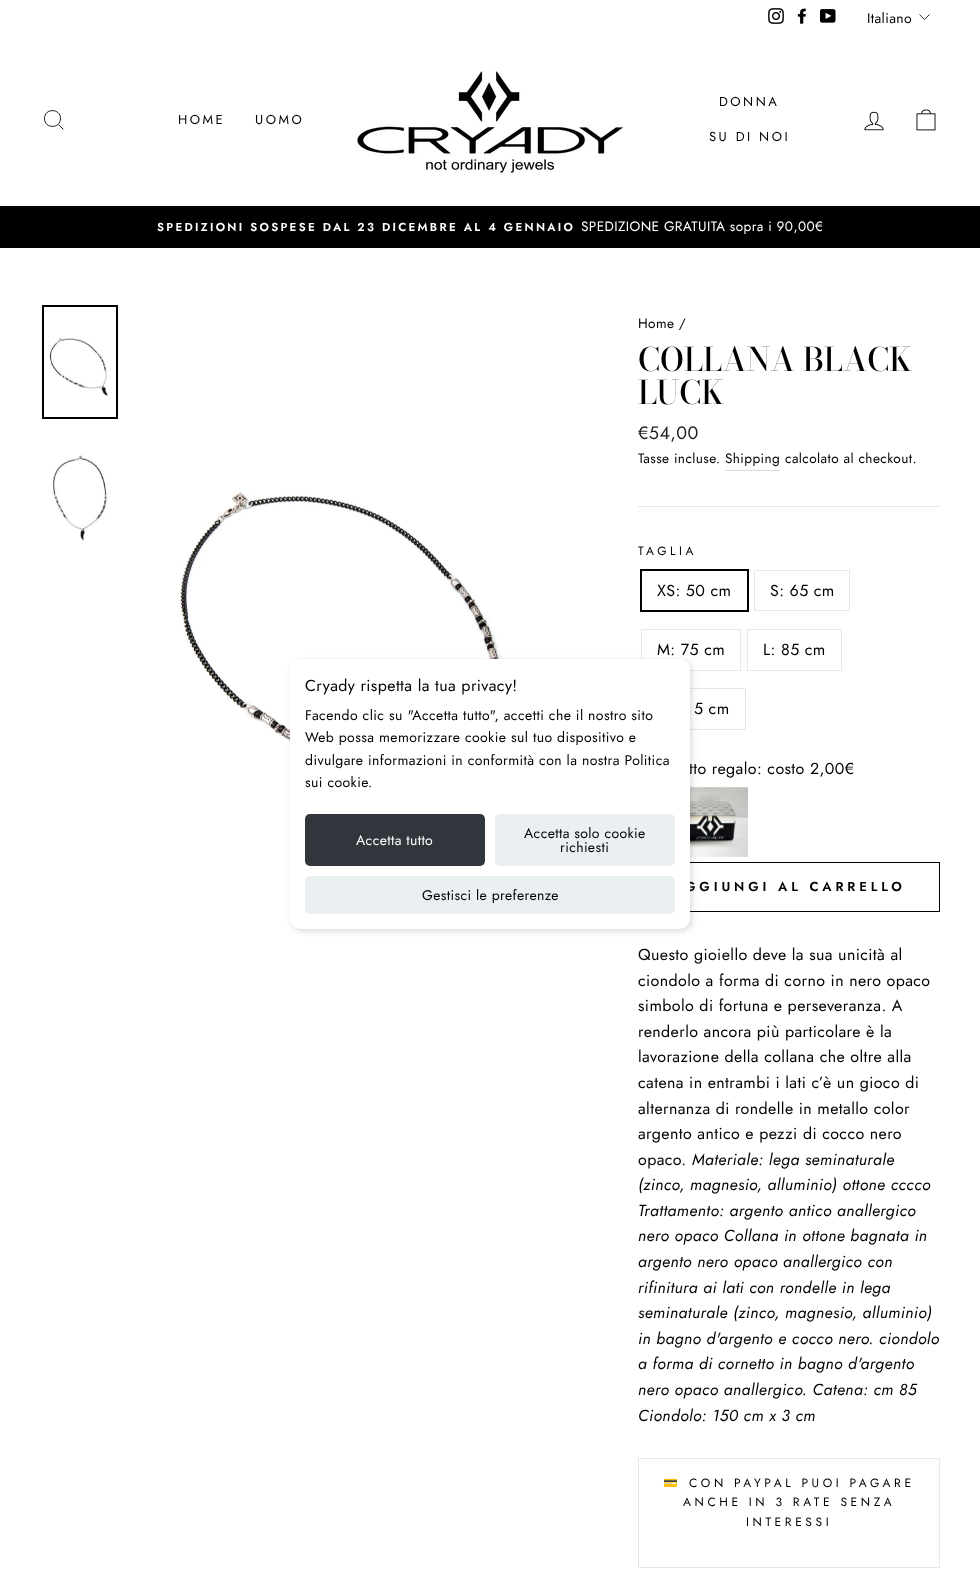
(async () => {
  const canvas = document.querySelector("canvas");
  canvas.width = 980;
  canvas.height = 1587;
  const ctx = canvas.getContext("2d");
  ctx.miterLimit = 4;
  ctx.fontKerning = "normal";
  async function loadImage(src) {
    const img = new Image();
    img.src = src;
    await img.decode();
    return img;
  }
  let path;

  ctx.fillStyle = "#ffffff";
  ctx.fillRect(0, 0, 980, 1587);
  ctx.drawImage(await loadImage("img/1.png"), 768, 8, 16, 16);
  ctx.drawImage(await loadImage("img/2.png"), 797, 8, 9, 16);
  ctx.drawImage(await loadImage("img/3.png"), 820, 9, 16, 14);
  path = new Path2D("M919.5 14.5L924.5 19.5L929.5 14.5");
  ctx.strokeStyle = "#000000";
  ctx.lineWidth = 0.8;
  ctx.stroke(path);
  path = new Path2D("M60.5 118.5C60.5 129 44.5 129 44.5 118.5C44.5 108 60.5 108 60.5 118.5ZM63.5 129.5L58.5 124.5");
  ctx.lineWidth = 0.9;
  ctx.stroke(path);
  ctx.drawImage(await loadImage("img/4.png"), 354, 70, 269, 105);
  ctx.drawImage(await loadImage("img/5.png"), 864, 111, 20, 20);
  ctx.drawImage(await loadImage("img/6.png"), 916, 109, 20, 22);
  ctx.fillStyle = "#000000";
  ctx.fillRect(0, 206, 980, 42);
  ctx.drawImage(await loadImage("img/7.png"), 49, 337, 59, 59);
  ctx.lineWidth = 2;
  ctx.strokeRect(43, 306, 74, 112);
  ctx.drawImage(await loadImage("img/8.png"), 52, 455, 56, 86);
  ctx.drawImage(await loadImage("img/9.png"), 179, 492, 335, 332);
  ctx.fillStyle = "#d9d9d9";
  ctx.fillRect(725, 470, 55, 1);
  ctx.fillStyle = "#e8e8e1";
  ctx.fillRect(638, 506, 302, 1);
  ctx.strokeRect(641, 570, 107, 41);
  ctx.strokeStyle = "#e8e8e1";
  ctx.lineWidth = 1;
  ctx.strokeRect(754.5, 570.5, 95, 40);
  ctx.strokeRect(641.5, 629.5, 99, 41);
  ctx.strokeRect(747.5, 629.5, 94, 41);
  ctx.strokeRect(641.5, 688.5, 104, 41);
  ctx.drawImage(await loadImage("img/10.png"), 690, 787, 58, 70);
  ctx.strokeStyle = "#000000";
  ctx.strokeRect(638.5, 862.5, 301, 49);
  for (const [x, y, w, h, color] of [
    [638, 1458, 302, 1, "#e8e8e1"],
    [939, 1458, 1, 110, "#e8e8e1"],
    [638, 1458, 1, 89, "#e8e8e1"],
    [638, 1567, 302, 1, "#e8e8e1"],
    [638, 1547, 1, 21, "#e8e8e1"],
  ]) {
    ctx.fillStyle = color;
    ctx.fillRect(x, y, w, h);
  }
  ctx.fillStyle = "rgba(0, 0, 0, 0.15)";
  ctx.filter = "blur(3px)";
  ctx.beginPath();
  ctx.roundRect(292, 661, 400, 270, 10);
  ctx.fill();
  ctx.filter = "none";
  ctx.letterSpacing = "0.35px";
  ctx.font = "14px Jost";
  ctx.fillStyle = "#000000";
  ctx.fillText("Italiano", 867, 23);
  ctx.letterSpacing = "2.5px";
  ctx.font = "13px Jost";
  for (const [text, x, y] of [
    ["HOME", 178, 124],
    ["UOMO", 255, 124],
    ["DONNA", 719, 106],
    ["SU DI NOI", 709, 141],
  ]) {
    ctx.fillText(text, x, y);
  }
  ctx.letterSpacing = "2.3px";
  ctx.font = "600 11.55px Jost";
  ctx.fillStyle = "#ffffff";
  ctx.fillText("SPEDIZIONI SOSPESE DAL 23 DICEMBRE AL 4 GENNAIO", 157, 231);
  ctx.letterSpacing = "0.4px";
  ctx.font = "13.6px Jost";
  ctx.fillText("SPEDIZIONE GRATUITA sopra i 90,00€", 581, 231);
  ctx.fillStyle = "#000000";
  ctx.fillText("Home /", 638, 328);
  ctx.letterSpacing = "0px";
  ctx.font = "500 32.25px Bodoni Moda";
  ctx.fillText("COLLANA BLACK", 638, 371);
  ctx.fillText("LUCK", 638, 404);
  ctx.letterSpacing = "0.4px";
  ctx.font = "18px Jost";
  ctx.fillStyle = "#1c1d1d";
  ctx.fillText("€54,00", 638, 439);
  ctx.font = "13.6px Jost";
  ctx.fillStyle = "#000000";
  ctx.fillText("Tasse incluse. Shipping", 638, 463);
  ctx.fillText("calcolato al checkout.", 785, 463);
  ctx.letterSpacing = "3.6px";
  ctx.font = "12px Jost";
  ctx.fillText("TAGLIA", 638, 555);
  ctx.letterSpacing = "0.4px";
  ctx.font = "16px Jost";
  for (const [text, x, y] of [
    ["XS: 50 cm", 657, 596],
    ["S: 65 cm", 770, 596],
    ["M: 75 cm", 657, 655],
    ["L: 85 cm", 763, 655],
    ["5 cm", 694, 714],
    ["tto regalo: costo 2,00€", 689, 774],
  ]) {
    ctx.fillText(text, x, y);
  }
  ctx.letterSpacing = "3.9px";
  ctx.font = "600 13px Jost";
  ctx.fillText("GGIUNGI AL CARRELLO", 685, 891);
  ctx.letterSpacing = "0.4px";
  ctx.font = "16px Jost";
  for (const [text, x, y] of [
    ["Questo gioiello deve la sua unicità al", 638, 960],
    ["ciondolo a forma di corno in nero opaco", 638, 986],
    ["simbolo di fortuna e perseveranza. A", 638, 1011],
    ["renderlo ancora più particolare è la", 638, 1037],
    ["lavorazione della collana che oltre alla", 638, 1062],
    ["catena in entrambi i lati c’è un gioco di", 638, 1088],
    ["alternanza di rondelle in metallo color", 638, 1114],
    ["argento antico e pezzi di cocco nero", 638, 1139],
    ["opaco.", 638, 1165],
  ]) {
    ctx.fillText(text, x, y);
  }
  ctx.font = "italic 16px Jost";
  for (const [text, x, y] of [
    ["Materiale: lega seminaturale", 692, 1165],
    ["(zinco, magnesio, alluminio) ottone cccco", 638, 1190],
    ["Trattamento: argento antico anallergico", 638, 1216],
    ["nero opaco Collana in ottone bagnata in", 638, 1241],
    ["argento nero opaco anallergico con", 638, 1267],
    ["rifinitura ai lati con rondelle in lega", 638, 1293],
    ["seminaturale (zinco, magnesio, alluminio)", 638, 1318],
    ["in bagno d'argento e cocco nero. ciondolo", 638, 1344],
    ["a forma di cornetto in bagno d'argento", 638, 1369],
    ["nero opaco anallergico. Catena: cm 85", 638, 1395],
    ["Ciondolo: 150 cm x 3 cm", 638, 1421],
  ]) {
    ctx.fillText(text, x, y);
  }
  ctx.letterSpacing = "3.6px";
  ctx.font = "12px Noto Color Emoji";
  ctx.fillText("💳", 663, 1487);
  ctx.font = "12px Jost";
  for (const [text, x, y] of [
    ["CON PAYPAL PUOI PAGARE", 689, 1487],
    ["ANCHE IN 3 RATE SENZA", 683, 1506],
    ["INTERESSI", 746, 1526],
  ]) {
    ctx.fillText(text, x, y);
  }
  ctx.fillStyle = "#ffffff";
  ctx.beginPath();
  ctx.roundRect(290, 659, 400, 270, 10);
  ctx.fill();
  ctx.letterSpacing = "0.4px";
  ctx.font = "16px Jost";
  ctx.fillStyle = "#000000";
  ctx.fillText("Cryady rispetta la tua privacy!", 305, 691);
  ctx.font = "14px Jost";
  for (const [text, x, y] of [
    ["Facendo clic su \"Accetta tutto\", accetti che il nostro sito", 305, 720],
    ["Web possa memorizzare cookie sul tuo dispositivo e", 305, 742],
    ["divulgare informazioni in conformità con la nostra Politica", 305, 765],
    ["sui cookie.", 305, 787],
  ]) {
    ctx.fillText(text, x, y);
  }
  ctx.fillStyle = "#30363c";
  ctx.beginPath();
  ctx.roundRect(305, 814, 180, 52, 5);
  ctx.fill();
  ctx.letterSpacing = "0.35px";
  ctx.fillStyle = "#ffffff";
  ctx.fillText("Accetta tutto", 356, 845);
  ctx.fillStyle = "#eaeff2";
  ctx.beginPath();
  ctx.roundRect(495, 814, 180, 52, 5);
  ctx.fill();
  ctx.fillStyle = "#000000";
  ctx.fillText("Accetta solo cookie", 524, 838);
  ctx.fillText("richiesti", 560, 852);
  ctx.fillStyle = "#eaeff2";
  ctx.beginPath();
  ctx.roundRect(305, 876, 370, 38, 5);
  ctx.fill();
  ctx.fillStyle = "#000000";
  ctx.fillText("Gestisci le preferenze", 422, 900);
})();
